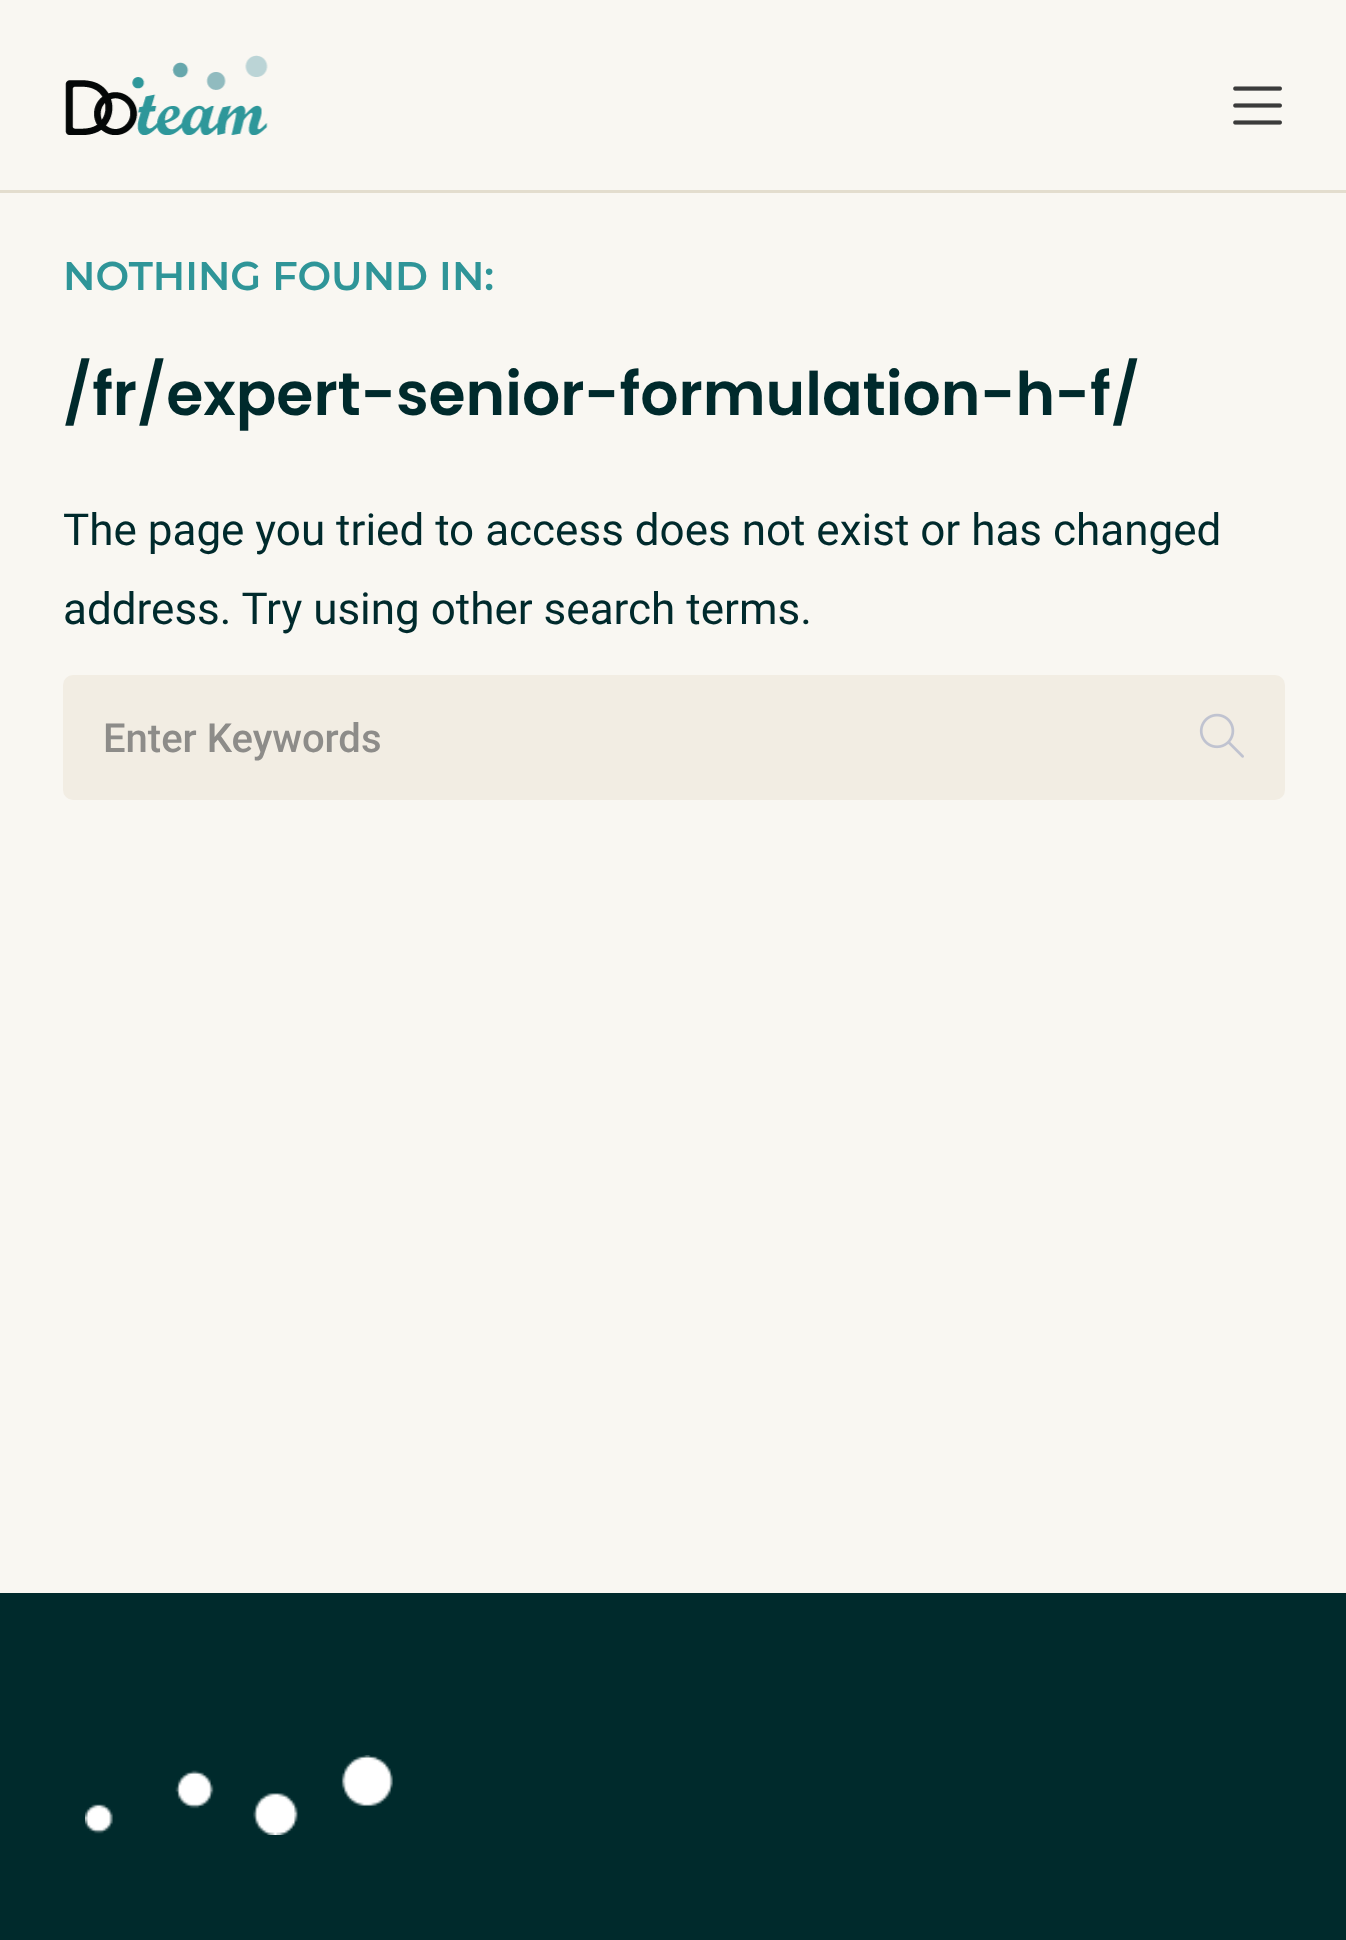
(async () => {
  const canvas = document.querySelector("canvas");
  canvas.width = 1346;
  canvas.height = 1940;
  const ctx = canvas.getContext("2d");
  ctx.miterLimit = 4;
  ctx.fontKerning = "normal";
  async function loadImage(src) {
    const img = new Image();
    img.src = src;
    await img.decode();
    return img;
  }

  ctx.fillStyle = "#f9f7f2";
  ctx.fillRect(0, 0, 1346, 1940);
  ctx.fillStyle = "#e3ddce";
  ctx.fillRect(0, 190, 1346, 3);
  ctx.drawImage(await loadImage("img/1.png"), 65, 55, 203, 80);
  ctx.drawImage(await loadImage("img/2.png"), 1233, 86, 49, 39);
  ctx.fillStyle = "#f2ede3";
  ctx.beginPath();
  ctx.roundRect(63, 675, 1222, 125, 10);
  ctx.fill();
  ctx.drawImage(await loadImage("img/3.png"), 1199, 713, 45, 45);
  ctx.fillStyle = "#002a2c";
  ctx.fillRect(0, 1593, 1346, 347);
  ctx.drawImage(await loadImage("img/4.png"), 85, 1755, 308, 80);
  ctx.font = "600 40px Montserrat";
  ctx.fillStyle = "#2f9598";
  ctx.fillText("NOTHING FOUND IN:", 63, 290);
  ctx.font = "600 60px Poppins";
  ctx.fillStyle = "#002a2c";
  ctx.fillText("/fr/expert-senior-formulation-h-f/", 63, 415);
  ctx.font = "44px Roboto";
  ctx.fillText("The page you tried to access does not exist or has changed", 63, 545);
  ctx.fillText("address. Try using other search terms.", 63, 624);
  ctx.font = "500 40px Roboto";
  ctx.fillStyle = "#8d8c89";
  ctx.fillText("Enter Keywords", 103, 752);
})();
